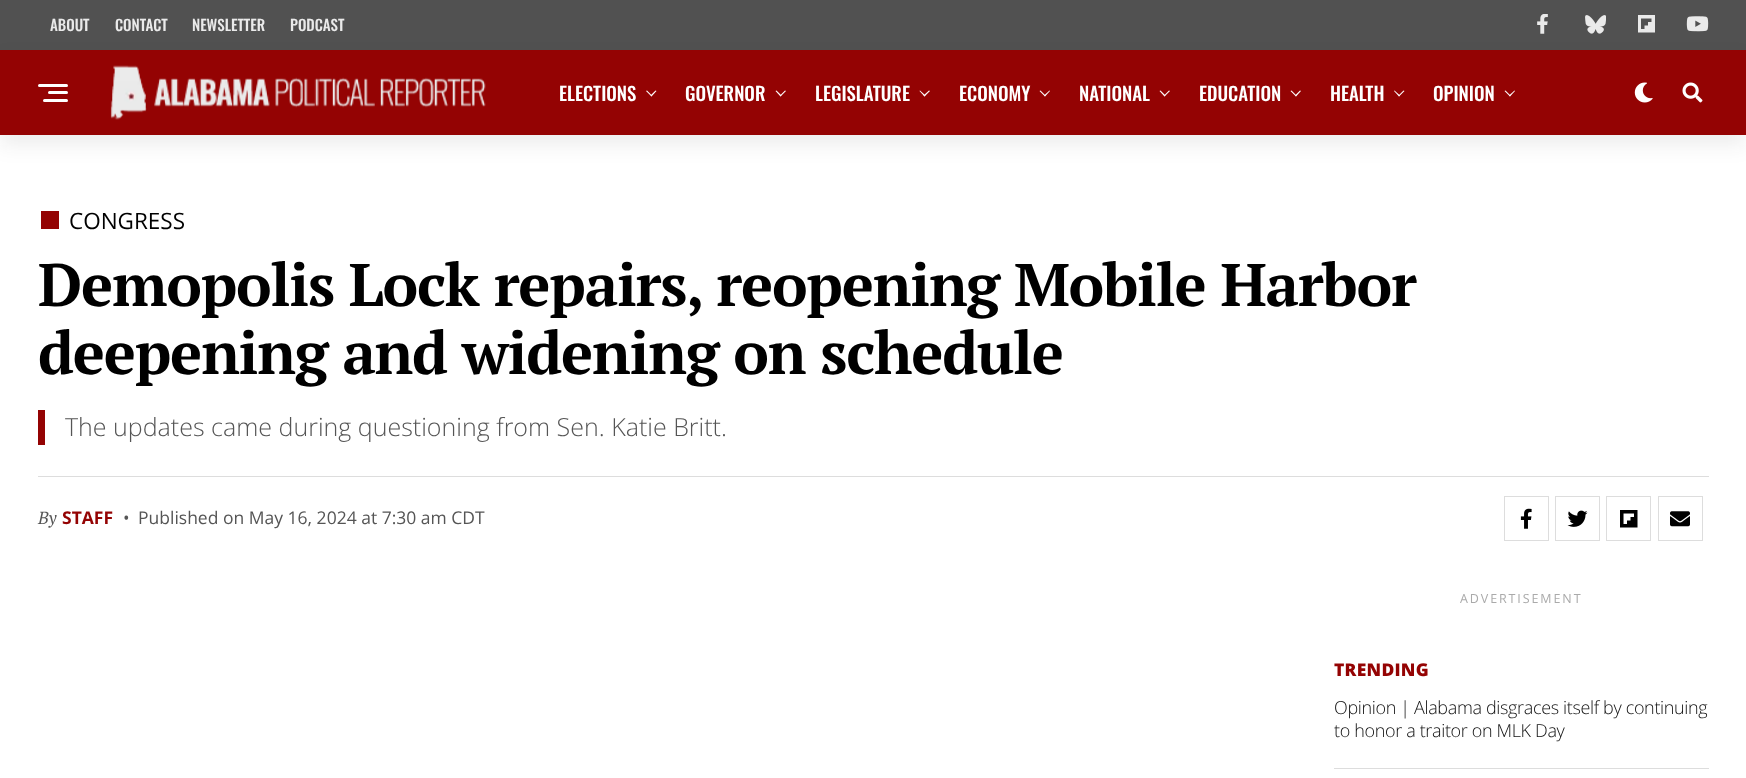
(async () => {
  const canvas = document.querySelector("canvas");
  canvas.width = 1746;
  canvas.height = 778;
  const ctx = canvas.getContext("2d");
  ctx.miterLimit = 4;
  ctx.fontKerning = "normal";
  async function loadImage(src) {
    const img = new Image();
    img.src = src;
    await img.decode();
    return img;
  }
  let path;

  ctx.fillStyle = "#ffffff";
  ctx.fillRect(0, 0, 1746, 778);
  ctx.fillStyle = "#515151";
  ctx.fillRect(0, 0, 1746, 50);
  ctx.drawImage(await loadImage("img/1.png"), 1537, 14, 11, 20);
  ctx.drawImage(await loadImage("img/2.png"), 1585, 15, 21, 19);
  ctx.drawImage(await loadImage("img/3.png"), 1638, 15, 17, 18);
  ctx.drawImage(await loadImage("img/4.png"), 1686, 16, 23, 16);
  ctx.fillStyle = "rgba(21, 21, 30, 0.08)";
  ctx.filter = "blur(10px)";
  ctx.beginPath();
  ctx.rect(0, 60, 1746, 85);
  ctx.fill();
  ctx.filter = "none";
  ctx.fillStyle = "#940303";
  ctx.fillRect(0, 50, 1746, 85);
  ctx.fillStyle = "#ffffff";
  ctx.beginPath();
  ctx.roundRect(38, 84, 30, 3, 1.5);
  ctx.fill();
  ctx.beginPath();
  ctx.roundRect(48, 91, 20, 3, 1.5);
  ctx.fill();
  ctx.beginPath();
  ctx.roundRect(43, 99, 25, 3, 1.5);
  ctx.fill();
  ctx.drawImage(await loadImage("img/5.png"), 110, 65, 376, 55);
  path = new Path2D("M655.5 90.5L656.5 91L651.5 96.5L650.5 95.5Z");
  ctx.fill(path);
  path = new Path2D("M647 90.5L652 95.5L651.5 96.5L646 91Z");
  ctx.fill(path);
  path = new Path2D("M785 90.5L786 91L780.5 96.5L780 95.5Z");
  ctx.fill(path);
  path = new Path2D("M776.5 90.5L781.5 95.5L780.5 96.5L775.5 91Z");
  ctx.fill(path);
  path = new Path2D("M929 90.5L930 91L924.5 96.5L923.5 95.5Z");
  ctx.fill(path);
  path = new Path2D("M920 90.5L925.5 95.5L924.5 96.5L919.5 91Z");
  ctx.fill(path);
  path = new Path2D("M1049.5 90.5L1050 91L1045 96.5L1044 95.5Z");
  ctx.fill(path);
  path = new Path2D("M1040.5 90.5L1045.5 95.5L1045 96.5L1039.5 91Z");
  ctx.fill(path);
  path = new Path2D("M1169 90.5L1170 91L1164.5 96.5L1164 95.5Z");
  ctx.fill(path);
  path = new Path2D("M1160.5 90.5L1165.5 95.5L1164.5 96.5L1159.5 91Z");
  ctx.fill(path);
  path = new Path2D("M1300 90.5L1301 91L1296 96.5L1295 95.5Z");
  ctx.fill(path);
  path = new Path2D("M1291.5 90.5L1296.5 95.5L1296 96.5L1290.5 91Z");
  ctx.fill(path);
  path = new Path2D("M1403.5 90.5L1404.5 91L1399 96.5L1398.5 95.5Z");
  ctx.fill(path);
  path = new Path2D("M1394.5 90.5L1400 95.5L1399 96.5L1394 91Z");
  ctx.fill(path);
  path = new Path2D("M1514.5 90.5L1515 91L1510 96.5L1509 95.5Z");
  ctx.fill(path);
  path = new Path2D("M1505.5 90.5L1510.5 95.5L1510 96.5L1504.5 91Z");
  ctx.fill(path);
  ctx.drawImage(await loadImage("img/6.png"), 1634, 82, 19, 21);
  ctx.drawImage(await loadImage("img/7.png"), 1682, 82, 21, 21);
  for (const [x, y, w, h, color] of [
    [41, 211, 18, 18, "#940303"],
    [38, 410, 7, 35, "#940303"],
    [38, 476, 1671, 1, "#dddddd"],
  ]) {
    ctx.fillStyle = color;
    ctx.fillRect(x, y, w, h);
  }
  ctx.strokeStyle = "#dddddd";
  ctx.strokeRect(1504.5, 496.5, 44, 44);
  ctx.drawImage(await loadImage("img/8.png"), 1520, 508, 12, 21);
  ctx.strokeRect(1555.5, 496.5, 44, 44);
  ctx.drawImage(await loadImage("img/9.png"), 1567, 510, 21, 17);
  ctx.strokeRect(1606.5, 496.5, 44, 44);
  ctx.drawImage(await loadImage("img/10.png"), 1620, 510, 18, 18);
  ctx.strokeRect(1658.5, 496.5, 44, 44);
  ctx.drawImage(await loadImage("img/11.png"), 1670, 511, 20, 16);
  ctx.fillRect(1334, 768, 375, 1);
  ctx.font = "500 15px Oswald";
  ctx.fillStyle = "#eaeaea";
  for (const [text, x, y] of [
    ["ABOUT", 50, 31],
    ["CONTACT", 115, 31],
    ["NEWSLETTER", 192, 31],
    ["PODCAST", 290, 31],
  ]) {
    ctx.fillText(text, x, y);
  }
  ctx.font = "500 18.75px Oswald";
  ctx.fillStyle = "#ffffff";
  for (const [text, x, y] of [
    ["ELECTIONS", 559, 101],
    ["GOVERNOR", 685, 101],
    ["LEGISLATURE", 815, 101],
    ["ECONOMY", 959, 101],
    ["NATIONAL", 1079, 101],
    ["EDUCATION", 1199, 101],
    ["HEALTH", 1330, 101],
    ["OPINION", 1433, 101],
  ]) {
    ctx.fillText(text, x, y);
  }
  ctx.font = "22.5px Open Sans";
  ctx.fillStyle = "#000000";
  ctx.fillText("CONGRESS", 69, 229);
  ctx.letterSpacing = "-1.2px";
  ctx.font = "bold 60px PT Serif";
  ctx.fillText("Demopolis Lock repairs, reopening Mobile Harbor", 38, 306);
  ctx.fillText("deepening and widening on schedule", 38, 374);
  ctx.letterSpacing = "0px";
  ctx.font = "300 25px Open Sans";
  ctx.fillStyle = "#555555";
  ctx.fillText("The updates came during questioning from Sen. Katie Britt.", 65, 436);
  ctx.font = "italic 17.5px PT Serif";
  ctx.fillText("By", 38, 524);
  ctx.font = "bold 17.5px Open Sans";
  ctx.fillStyle = "#940303";
  ctx.fillText("STAFF", 62, 524);
  ctx.font = "17.5px Open Sans";
  ctx.fillStyle = "#555555";
  ctx.fillText("•", 123, 524);
  ctx.fillText("Published on May 16, 2024 at 7:30 am CDT", 138, 524);
  ctx.letterSpacing = "1.9px";
  ctx.font = "12.5px Open Sans";
  ctx.fillStyle = "#aaaaaa";
  ctx.fillText("ADVERTISEMENT", 1460, 603);
  ctx.letterSpacing = "0.25px";
  ctx.font = "800 17.5px Open Sans";
  ctx.fillStyle = "#940303";
  ctx.fillText("TRENDING", 1334, 676);
  ctx.letterSpacing = "-0.35px";
  ctx.font = "300 18px Open Sans";
  ctx.fillStyle = "#111111";
  ctx.fillText("Opinion | Alabama disgraces itself by continuing", 1334, 714);
  ctx.fillText("to honor a traitor on MLK Day", 1334, 737);
})();
